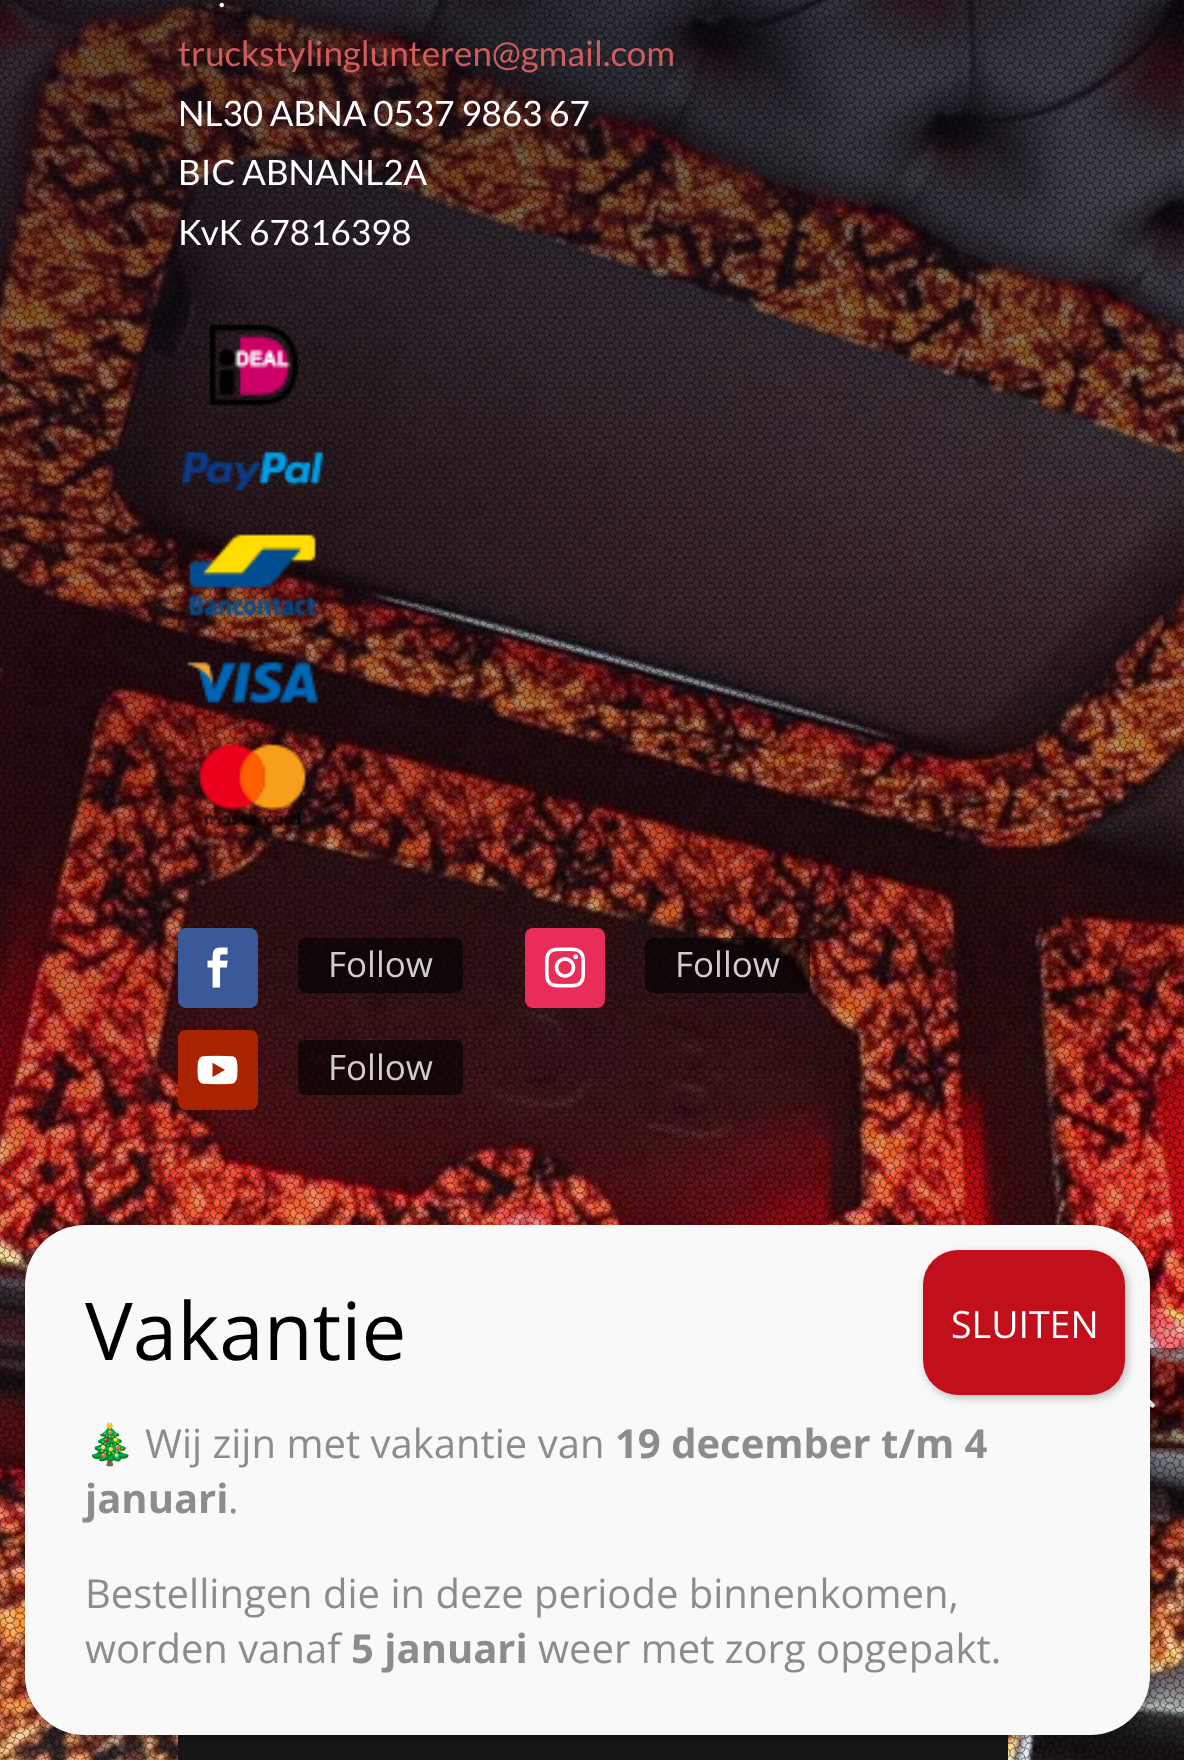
(async () => {
  const canvas = document.querySelector("canvas");
  canvas.width = 1184;
  canvas.height = 1760;
  const ctx = canvas.getContext("2d");
  ctx.miterLimit = 4;
  ctx.fontKerning = "normal";
  async function loadImage(src) {
    const img = new Image();
    img.src = src;
    await img.decode();
    return img;
  }

  ctx.fillStyle = "#ffffff";
  ctx.fillRect(0, 0, 1184, 1760);
  ctx.drawImage(await loadImage("img/1.png"), 0, 0, 1184, 1760);
  ctx.drawImage(await loadImage("img/2.png"), 0, 0, 1184, 1760);
  ctx.drawImage(await loadImage("img/3.png"), 209, 324, 90, 82);
  ctx.drawImage(await loadImage("img/4.png"), 181, 451, 143, 40);
  ctx.drawImage(await loadImage("img/5.png"), 189, 534, 127, 82);
  ctx.drawImage(await loadImage("img/6.png"), 186, 661, 133, 43);
  ctx.drawImage(await loadImage("img/7.png"), 199, 744, 107, 82);
  ctx.fillStyle = "#3b5998";
  ctx.beginPath();
  ctx.roundRect(178, 928, 80, 80, 8);
  ctx.fill();
  ctx.drawImage(await loadImage("img/8.png"), 207, 947, 21, 41);
  ctx.fillStyle = "rgba(0, 0, 0, 0.6)";
  ctx.beginPath();
  ctx.roundRect(298, 938, 165, 55, 8);
  ctx.fill();
  ctx.fillStyle = "#ea2c59";
  ctx.beginPath();
  ctx.roundRect(525, 928, 80, 80, 8);
  ctx.fill();
  ctx.drawImage(await loadImage("img/9.png"), 545, 947, 40, 41);
  ctx.fillStyle = "rgba(0, 0, 0, 0.6)";
  ctx.beginPath();
  ctx.roundRect(645, 938, 165, 55, 8);
  ctx.fill();
  ctx.fillStyle = "#a82400";
  ctx.beginPath();
  ctx.roundRect(178, 1030, 80, 80, 8);
  ctx.fill();
  ctx.drawImage(await loadImage("img/10.png"), 197, 1055, 41, 30);
  ctx.fillStyle = "rgba(0, 0, 0, 0.6)";
  ctx.beginPath();
  ctx.roundRect(298, 1040, 165, 55, 8);
  ctx.fill();
  ctx.fillStyle = "#161616";
  ctx.fillRect(178, 1735, 830, 25);
  ctx.fillStyle = "rgba(0, 0, 0, 0.4)";
  ctx.fillRect(1150, 1348, 34, 100);
  ctx.drawImage(await loadImage("img/11.png"), 1150, 1399, 5, 9);
  ctx.fillStyle = "rgba(2, 2, 2, 0.23)";
  ctx.filter = "blur(4px)";
  ctx.beginPath();
  ctx.roundRect(28, 1228, 1125, 510, 60);
  ctx.fill();
  ctx.filter = "none";
  ctx.fillStyle = "#f9f9f9";
  ctx.beginPath();
  ctx.roundRect(25, 1225, 1125, 510, 60);
  ctx.fill();
  ctx.fillStyle = "rgba(2, 2, 2, 0.23)";
  ctx.filter = "blur(4px)";
  ctx.beginPath();
  ctx.roundRect(925, 1253, 203, 145, 35);
  ctx.fill();
  ctx.filter = "none";
  ctx.fillStyle = "#c10f1b";
  ctx.beginPath();
  ctx.roundRect(923, 1250, 202, 145, 35);
  ctx.fill();
  ctx.font = "35px Lato";
  ctx.fillStyle = "#ffffff";
  ctx.fillText(".", 218, 7);
  ctx.fillStyle = "#cd5c5c";
  ctx.fillText("truckstylinglunteren@gmail.com", 178, 66);
  ctx.fillStyle = "#ffffff";
  for (const [text, x, y] of [
    ["NL30 ABNA 0537 9863 67", 178, 126],
    ["BIC ABNANL2A", 178, 185],
    ["KvK 67816398", 178, 245],
  ]) {
    ctx.fillText(text, x, y);
  }
  ctx.font = "35px Open Sans";
  ctx.fillStyle = "#d0cdce";
  for (const [text, x, y] of [
    ["Follow", 328, 977],
    ["Follow", 675, 977],
    ["Follow", 328, 1080],
  ]) {
    ctx.fillText(text, x, y);
  }
  ctx.font = "80px Open Sans";
  ctx.fillStyle = "#000000";
  ctx.fillText("Vakantie", 85, 1360);
  ctx.font = "37.5px Open Sans";
  ctx.fillStyle = "#ffffff";
  ctx.fillText("SLUITEN", 951, 1338);
  ctx.font = "40px Noto Color Emoji";
  ctx.fillStyle = "#8c8c8c";
  ctx.fillText("🎄", 85, 1458);
  ctx.font = "40px Open Sans";
  ctx.fillText("Wij zijn met vakantie van", 145, 1458);
  ctx.font = "bold 40px Open Sans";
  ctx.fillText("19 december t/m 4", 615, 1458);
  ctx.fillText("januari", 85, 1513);
  ctx.font = "40px Open Sans";
  for (const [text, x, y] of [
    [".", 228, 1513],
    ["Bestellingen die in deze periode binnenkomen,", 85, 1608],
    ["worden vanaf", 85, 1663],
  ]) {
    ctx.fillText(text, x, y);
  }
  ctx.font = "bold 40px Open Sans";
  ctx.fillText("5 januari", 351, 1663);
  ctx.font = "40px Open Sans";
  ctx.fillText("weer met zorg opgepakt.", 538, 1663);
})();
